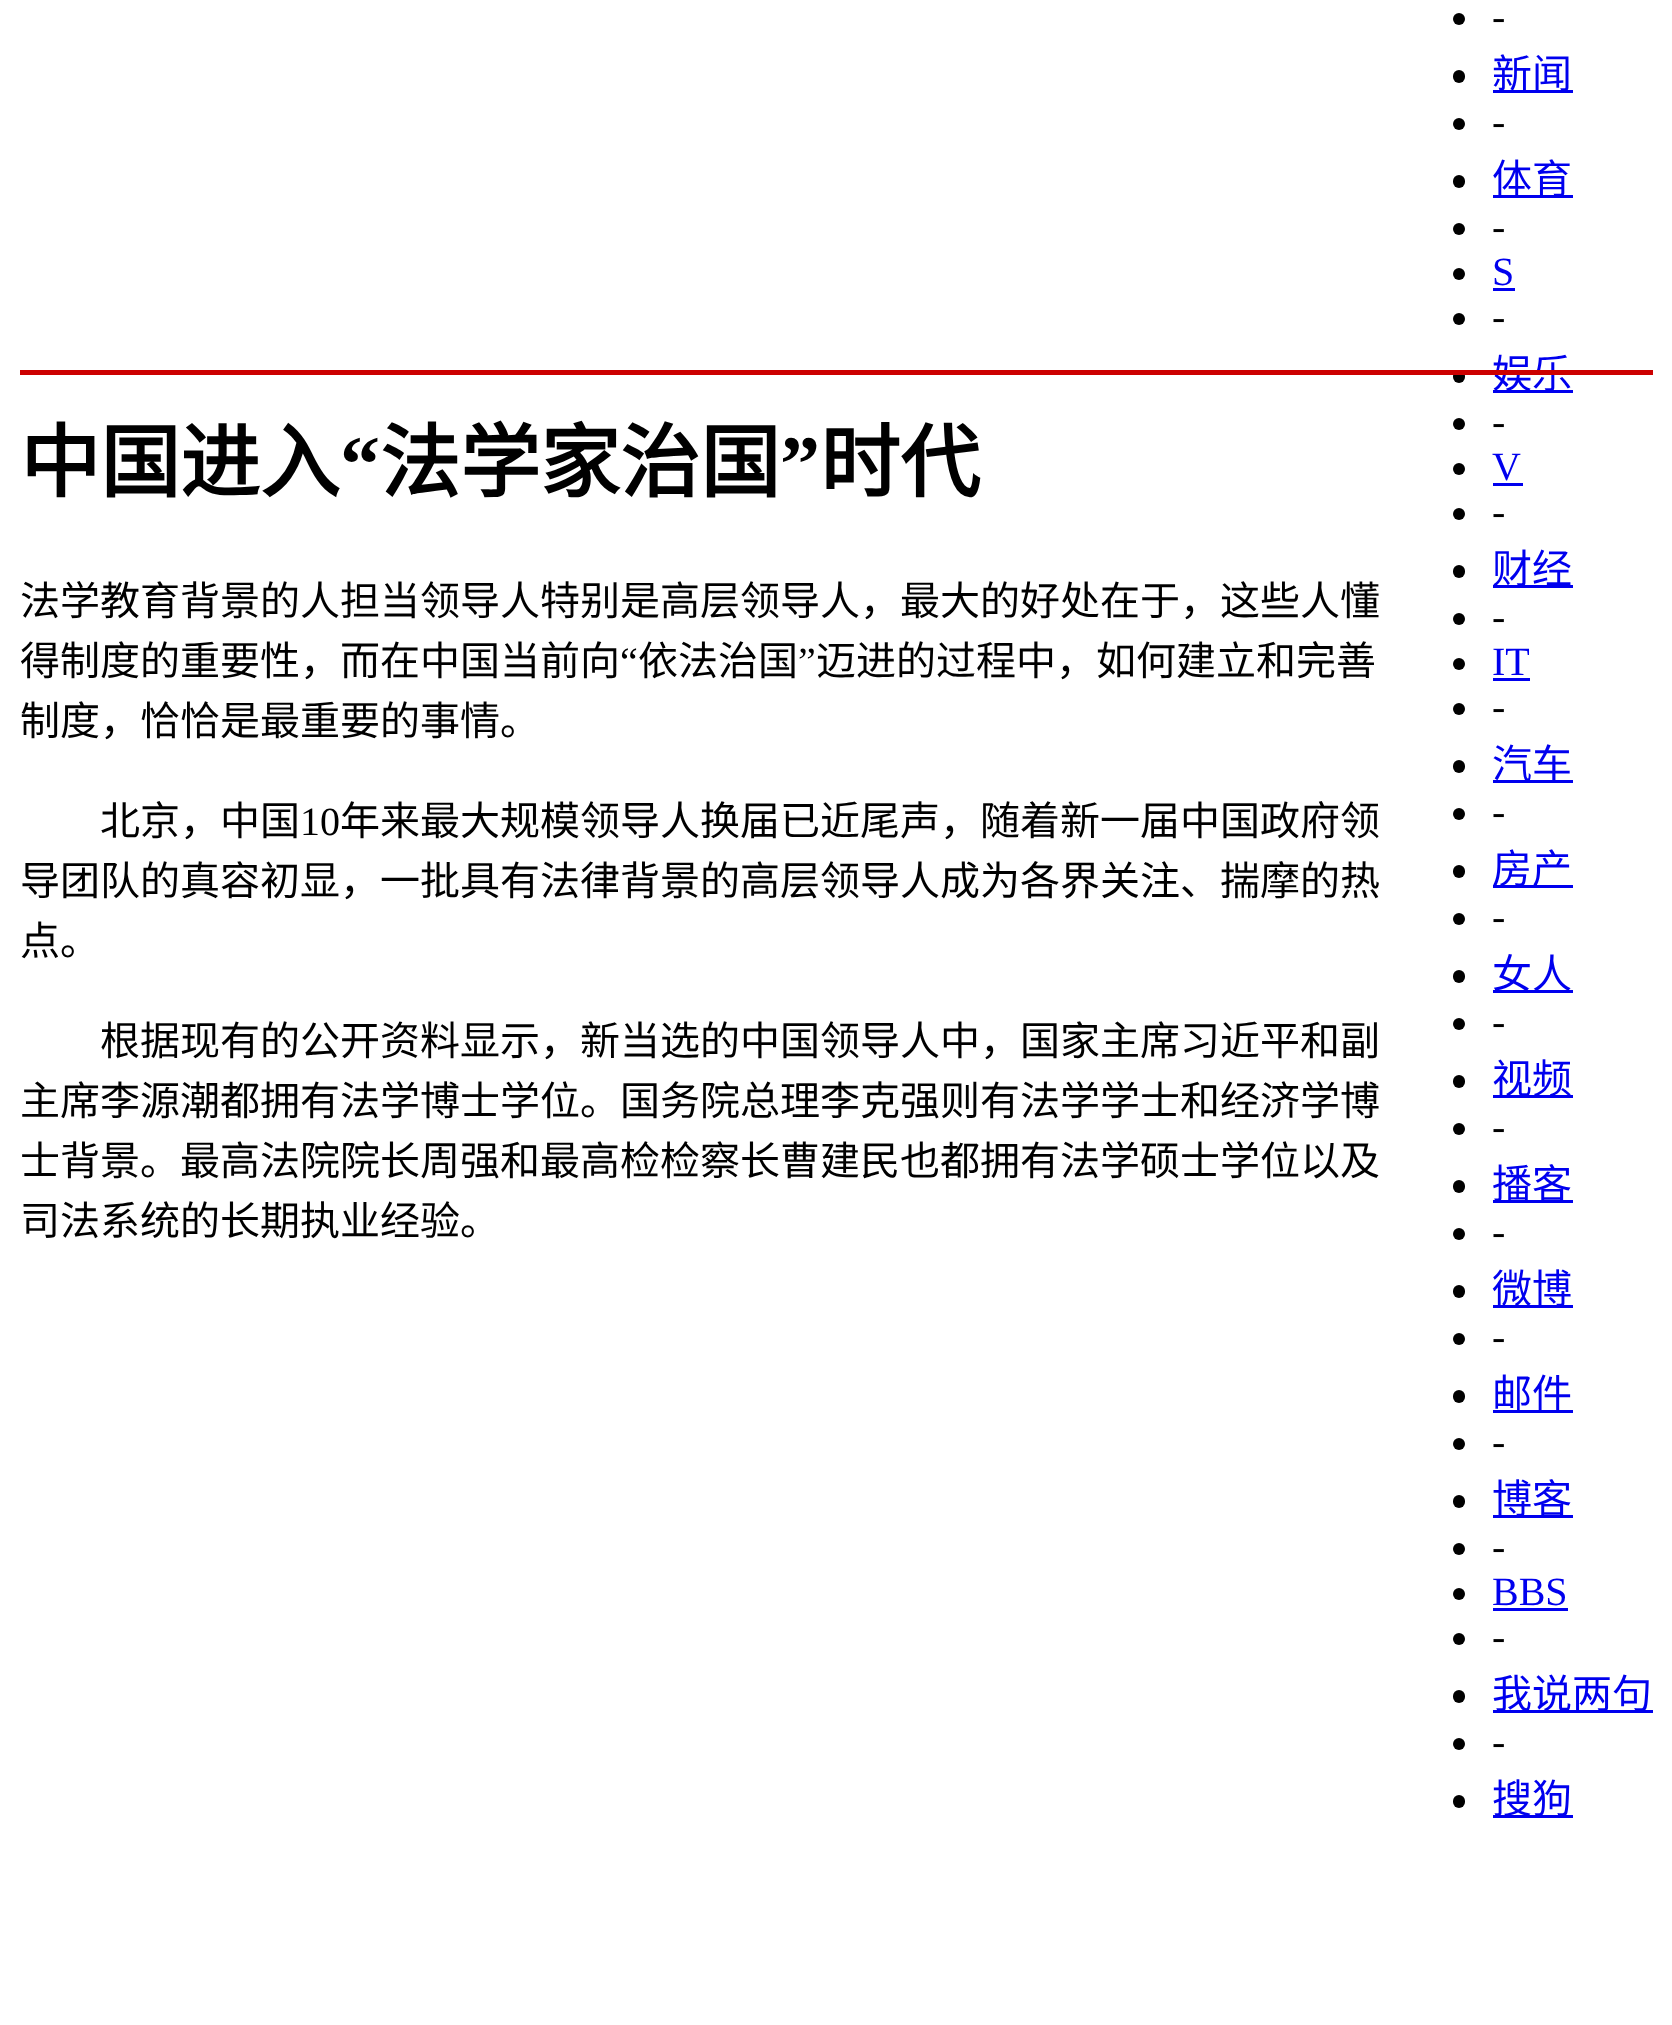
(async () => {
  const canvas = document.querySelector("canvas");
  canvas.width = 1672;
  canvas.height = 2025;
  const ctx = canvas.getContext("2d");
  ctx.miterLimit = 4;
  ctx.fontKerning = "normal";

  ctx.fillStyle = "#ffffff";
  ctx.fillRect(0, 0, 1672, 2025);
  ctx.fillStyle = "#000000";
  ctx.beginPath();
  ctx.arc(1459, 19, 6, 0, Math.PI * 2);
  ctx.fill();
  ctx.beginPath();
  ctx.roundRect(1453, 70, 12, 13, 6);
  ctx.fill();
  ctx.fillStyle = "#0000ee";
  ctx.fillRect(1493, 90, 80, 3);
  ctx.fillStyle = "#000000";
  ctx.beginPath();
  ctx.arc(1459, 124, 6, 0, Math.PI * 2);
  ctx.fill();
  ctx.beginPath();
  ctx.roundRect(1453, 175, 12, 13, 6);
  ctx.fill();
  ctx.fillStyle = "#0000ee";
  ctx.fillRect(1493, 195, 80, 3);
  ctx.fillStyle = "#000000";
  ctx.beginPath();
  ctx.arc(1459, 229, 6, 0, Math.PI * 2);
  ctx.fill();
  ctx.beginPath();
  ctx.arc(1459, 274, 6, 0, Math.PI * 2);
  ctx.fill();
  ctx.fillStyle = "#0000ee";
  ctx.fillRect(1493, 288, 22, 3);
  ctx.fillStyle = "#000000";
  ctx.beginPath();
  ctx.arc(1459, 319, 6, 0, Math.PI * 2);
  ctx.fill();
  ctx.beginPath();
  ctx.roundRect(1453, 370, 12, 13, 6);
  ctx.fill();
  ctx.fillStyle = "#0000ee";
  ctx.fillRect(1493, 390, 80, 3);
  ctx.fillStyle = "#000000";
  ctx.beginPath();
  ctx.arc(1459, 424, 6, 0, Math.PI * 2);
  ctx.fill();
  ctx.beginPath();
  ctx.arc(1459, 469, 6, 0, Math.PI * 2);
  ctx.fill();
  ctx.fillStyle = "#0000ee";
  ctx.fillRect(1493, 483, 30, 3);
  ctx.fillStyle = "#000000";
  ctx.beginPath();
  ctx.arc(1459, 514, 6, 0, Math.PI * 2);
  ctx.fill();
  ctx.beginPath();
  ctx.roundRect(1453, 565, 12, 13, 6);
  ctx.fill();
  ctx.fillStyle = "#0000ee";
  ctx.fillRect(1493, 585, 80, 3);
  ctx.fillStyle = "#000000";
  ctx.beginPath();
  ctx.arc(1459, 619, 6, 0, Math.PI * 2);
  ctx.fill();
  ctx.beginPath();
  ctx.arc(1459, 664, 6, 0, Math.PI * 2);
  ctx.fill();
  ctx.fillStyle = "#0000ee";
  ctx.fillRect(1493, 678, 37, 3);
  ctx.fillStyle = "#000000";
  ctx.beginPath();
  ctx.arc(1459, 709, 6, 0, Math.PI * 2);
  ctx.fill();
  ctx.beginPath();
  ctx.roundRect(1453, 760, 12, 13, 6);
  ctx.fill();
  ctx.fillStyle = "#0000ee";
  ctx.fillRect(1493, 780, 80, 3);
  ctx.fillStyle = "#000000";
  ctx.beginPath();
  ctx.arc(1459, 814, 6, 0, Math.PI * 2);
  ctx.fill();
  ctx.beginPath();
  ctx.roundRect(1453, 865, 12, 13, 6);
  ctx.fill();
  ctx.fillStyle = "#0000ee";
  ctx.fillRect(1493, 885, 80, 3);
  ctx.fillStyle = "#000000";
  ctx.beginPath();
  ctx.arc(1459, 919, 6, 0, Math.PI * 2);
  ctx.fill();
  ctx.beginPath();
  ctx.roundRect(1453, 970, 12, 13, 6);
  ctx.fill();
  ctx.fillStyle = "#0000ee";
  ctx.fillRect(1493, 990, 80, 3);
  ctx.fillStyle = "#000000";
  ctx.beginPath();
  ctx.arc(1459, 1024, 6, 0, Math.PI * 2);
  ctx.fill();
  ctx.beginPath();
  ctx.roundRect(1453, 1075, 12, 13, 6);
  ctx.fill();
  ctx.fillStyle = "#0000ee";
  ctx.fillRect(1493, 1095, 80, 3);
  ctx.fillStyle = "#000000";
  ctx.beginPath();
  ctx.arc(1459, 1129, 6, 0, Math.PI * 2);
  ctx.fill();
  ctx.beginPath();
  ctx.roundRect(1453, 1180, 12, 13, 6);
  ctx.fill();
  ctx.fillStyle = "#0000ee";
  ctx.fillRect(1493, 1200, 80, 3);
  ctx.fillStyle = "#000000";
  ctx.beginPath();
  ctx.arc(1459, 1234, 6, 0, Math.PI * 2);
  ctx.fill();
  ctx.beginPath();
  ctx.roundRect(1453, 1285, 12, 13, 6);
  ctx.fill();
  ctx.fillStyle = "#0000ee";
  ctx.fillRect(1493, 1305, 80, 3);
  ctx.fillStyle = "#000000";
  ctx.beginPath();
  ctx.arc(1459, 1339, 6, 0, Math.PI * 2);
  ctx.fill();
  ctx.beginPath();
  ctx.roundRect(1453, 1390, 12, 13, 6);
  ctx.fill();
  ctx.fillStyle = "#0000ee";
  ctx.fillRect(1493, 1410, 80, 3);
  ctx.fillStyle = "#000000";
  ctx.beginPath();
  ctx.arc(1459, 1444, 6, 0, Math.PI * 2);
  ctx.fill();
  ctx.beginPath();
  ctx.roundRect(1453, 1495, 12, 13, 6);
  ctx.fill();
  ctx.fillStyle = "#0000ee";
  ctx.fillRect(1493, 1515, 80, 3);
  ctx.fillStyle = "#000000";
  ctx.beginPath();
  ctx.arc(1459, 1549, 6, 0, Math.PI * 2);
  ctx.fill();
  ctx.beginPath();
  ctx.arc(1459, 1594, 6, 0, Math.PI * 2);
  ctx.fill();
  ctx.fillStyle = "#0000ee";
  ctx.fillRect(1493, 1608, 75, 3);
  ctx.fillStyle = "#000000";
  ctx.beginPath();
  ctx.arc(1459, 1639, 6, 0, Math.PI * 2);
  ctx.fill();
  ctx.beginPath();
  ctx.roundRect(1453, 1690, 12, 13, 6);
  ctx.fill();
  ctx.fillStyle = "#0000ee";
  ctx.fillRect(1493, 1710, 160, 3);
  ctx.fillStyle = "#000000";
  ctx.beginPath();
  ctx.arc(1459, 1744, 6, 0, Math.PI * 2);
  ctx.fill();
  ctx.beginPath();
  ctx.roundRect(1453, 1795, 12, 13, 6);
  ctx.fill();
  ctx.fillStyle = "#0000ee";
  ctx.fillRect(1493, 1815, 80, 3);
  ctx.font = "40px Liberation Serif";
  ctx.fillStyle = "#000000";
  ctx.fillText("-", 1492, 30);
  ctx.font = "40px Noto Sans CJK SC";
  ctx.fillStyle = "#0000ee";
  ctx.fillText("新闻", 1492, 88);
  ctx.font = "40px Liberation Serif";
  ctx.fillStyle = "#000000";
  ctx.fillText("-", 1492, 135);
  ctx.font = "40px Noto Sans CJK SC";
  ctx.fillStyle = "#0000ee";
  ctx.fillText("体育", 1492, 193);
  ctx.font = "40px Liberation Serif";
  ctx.fillStyle = "#000000";
  ctx.fillText("-", 1492, 240);
  ctx.fillStyle = "#0000ee";
  ctx.fillText("S", 1492, 285);
  ctx.fillStyle = "#000000";
  ctx.fillText("-", 1492, 330);
  ctx.font = "40px Noto Sans CJK SC";
  ctx.fillStyle = "#0000ee";
  ctx.fillText("娱乐", 1492, 388);
  ctx.font = "40px Liberation Serif";
  ctx.fillStyle = "#000000";
  ctx.fillText("-", 1492, 435);
  ctx.fillStyle = "#0000ee";
  ctx.fillText("V", 1492, 480);
  ctx.fillStyle = "#000000";
  ctx.fillText("-", 1492, 525);
  ctx.font = "40px Noto Sans CJK SC";
  ctx.fillStyle = "#0000ee";
  ctx.fillText("财经", 1492, 583);
  ctx.font = "40px Liberation Serif";
  ctx.fillStyle = "#000000";
  ctx.fillText("-", 1492, 630);
  ctx.fillStyle = "#0000ee";
  ctx.fillText("IT", 1492, 675);
  ctx.fillStyle = "#000000";
  ctx.fillText("-", 1492, 720);
  ctx.font = "40px Noto Sans CJK SC";
  ctx.fillStyle = "#0000ee";
  ctx.fillText("汽车", 1492, 778);
  ctx.font = "40px Liberation Serif";
  ctx.fillStyle = "#000000";
  ctx.fillText("-", 1492, 825);
  ctx.font = "40px Noto Sans CJK SC";
  ctx.fillStyle = "#0000ee";
  ctx.fillText("房产", 1492, 883);
  ctx.font = "40px Liberation Serif";
  ctx.fillStyle = "#000000";
  ctx.fillText("-", 1492, 930);
  ctx.font = "40px Noto Sans CJK SC";
  ctx.fillStyle = "#0000ee";
  ctx.fillText("女人", 1492, 988);
  ctx.font = "40px Liberation Serif";
  ctx.fillStyle = "#000000";
  ctx.fillText("-", 1492, 1035);
  ctx.font = "40px Noto Sans CJK SC";
  ctx.fillStyle = "#0000ee";
  ctx.fillText("视频", 1492, 1093);
  ctx.font = "40px Liberation Serif";
  ctx.fillStyle = "#000000";
  ctx.fillText("-", 1492, 1140);
  ctx.font = "40px Noto Sans CJK SC";
  ctx.fillStyle = "#0000ee";
  ctx.fillText("播客", 1492, 1198);
  ctx.font = "40px Liberation Serif";
  ctx.fillStyle = "#000000";
  ctx.fillText("-", 1492, 1245);
  ctx.font = "40px Noto Sans CJK SC";
  ctx.fillStyle = "#0000ee";
  ctx.fillText("微博", 1492, 1303);
  ctx.font = "40px Liberation Serif";
  ctx.fillStyle = "#000000";
  ctx.fillText("-", 1492, 1350);
  ctx.font = "40px Noto Sans CJK SC";
  ctx.fillStyle = "#0000ee";
  ctx.fillText("邮件", 1492, 1408);
  ctx.font = "40px Liberation Serif";
  ctx.fillStyle = "#000000";
  ctx.fillText("-", 1492, 1455);
  ctx.font = "40px Noto Sans CJK SC";
  ctx.fillStyle = "#0000ee";
  ctx.fillText("博客", 1492, 1513);
  ctx.font = "40px Liberation Serif";
  ctx.fillStyle = "#000000";
  ctx.fillText("-", 1492, 1560);
  ctx.fillStyle = "#0000ee";
  ctx.fillText("BBS", 1492, 1605);
  ctx.fillStyle = "#000000";
  ctx.fillText("-", 1492, 1650);
  ctx.font = "40px Noto Sans CJK SC";
  ctx.fillStyle = "#0000ee";
  ctx.fillText("我说两句", 1492, 1708);
  ctx.font = "40px Liberation Serif";
  ctx.fillStyle = "#000000";
  ctx.fillText("-", 1492, 1755);
  ctx.font = "40px Noto Sans CJK SC";
  ctx.fillStyle = "#0000ee";
  ctx.fillText("搜狗", 1492, 1813);
  ctx.fillStyle = "#cc0000";
  ctx.fillRect(20, 370, 1633, 5);
  ctx.font = "bold 80px Noto Sans CJK SC";
  ctx.fillStyle = "#000000";
  ctx.fillText("中国进入", 20, 491);
  ctx.font = "bold 80px Liberation Serif";
  ctx.fillText("“", 340, 491);
  ctx.font = "bold 80px Noto Sans CJK SC";
  ctx.fillText("法学家治国", 380, 491);
  ctx.font = "bold 80px Liberation Serif";
  ctx.fillText("”", 780, 491);
  ctx.font = "bold 80px Noto Sans CJK SC";
  ctx.fillText("时代", 820, 491);
  ctx.font = "40px Noto Sans CJK SC";
  ctx.fillText("法学教育背景的人担当领导人特别是高层领导人，最大的好处在于，这些人懂", 20, 615);
  ctx.fillText("得制度的重要性，而在中国当前向", 20, 675);
  ctx.font = "40px Liberation Serif";
  ctx.fillText("“", 620, 675);
  ctx.font = "40px Noto Sans CJK SC";
  ctx.fillText("依法治国", 638, 675);
  ctx.font = "40px Liberation Serif";
  ctx.fillText("”", 798, 675);
  ctx.font = "40px Noto Sans CJK SC";
  for (const [text, x, y] of [
    ["迈进的过程中，如何建立和完善", 816, 675],
    ["制度，恰恰是最重要的事情。", 20, 735],
    ["北京，中国", 100, 835],
  ]) {
    ctx.fillText(text, x, y);
  }
  ctx.font = "40px Liberation Serif";
  ctx.fillText("10", 300, 835);
  ctx.font = "40px Noto Sans CJK SC";
  for (const [text, x, y] of [
    ["年来最大规模领导人换届已近尾声，随着新一届中国政府领", 340, 835],
    ["导团队的真容初显，一批具有法律背景的高层领导人成为各界关注、揣摩的热", 20, 895],
    ["点。", 20, 955],
    ["根据现有的公开资料显示，新当选的中国领导人中，国家主席习近平和副", 100, 1055],
    ["主席李源潮都拥有法学博士学位。国务院总理李克强则有法学学士和经济学博", 20, 1115],
    ["士背景。最高法院院长周强和最高检检察长曹建民也都拥有法学硕士学位以及", 20, 1175],
    ["司法系统的长期执业经验。", 20, 1235],
  ]) {
    ctx.fillText(text, x, y);
  }
})();
